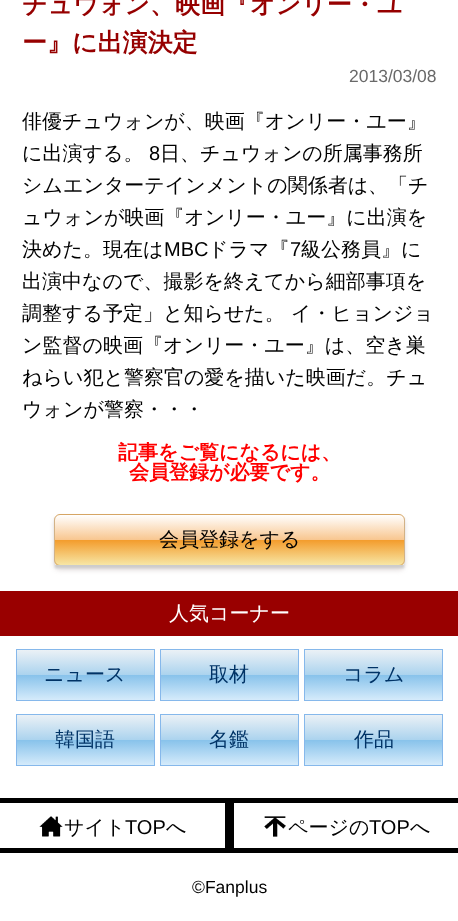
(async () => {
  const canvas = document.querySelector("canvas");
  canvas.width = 458;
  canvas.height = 921;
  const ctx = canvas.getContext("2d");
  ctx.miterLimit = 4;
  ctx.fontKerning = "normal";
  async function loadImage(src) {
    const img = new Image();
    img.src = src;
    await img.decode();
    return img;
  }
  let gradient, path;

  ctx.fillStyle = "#ffffff";
  ctx.fillRect(0, 0, 458, 921);
  ctx.fillStyle = "#dfd9d9";
  ctx.filter = "blur(2.5px)";
  ctx.beginPath();
  ctx.roundRect(54, 518, 351, 52, 6);
  ctx.fill();
  ctx.filter = "none";
  ctx.save();
  ctx.beginPath();
  ctx.roundRect(54, 514, 351, 52, 6);
  ctx.clip();
  gradient = ctx.createLinearGradient(229, 515, 229, 565);
  gradient.addColorStop(0, "#ffffff");
  gradient.addColorStop(0.5, "#f8c68f");
  gradient.addColorStop(0.51, "#f39d2e");
  gradient.addColorStop(1, "#f7e6a5");
  ctx.fillStyle = gradient;
  ctx.fillRect(54, 515, 351, 50);
  ctx.restore();
  ctx.beginPath();
  ctx.roundRect(54.5, 514.5, 350, 51, 5.5);
  ctx.strokeStyle = "#d6a564";
  ctx.stroke();
  ctx.save();
  path = new Path2D("M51 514H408V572H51ZM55 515H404V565H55Z");
  ctx.clip(path, "evenodd");
  ctx.fillStyle = "#cccccc";
  ctx.filter = "blur(1px)";
  ctx.beginPath();
  ctx.rect(55, 518, 349, 50);
  ctx.fill();
  ctx.filter = "none";
  ctx.restore();
  ctx.fillStyle = "#990000";
  ctx.fillRect(0, 591, 458, 45);
  gradient = ctx.createLinearGradient(86, 650, 86, 700);
  gradient.addColorStop(0, "#ebf1f6");
  gradient.addColorStop(0.5, "#abd3ee");
  gradient.addColorStop(0.51, "#89c3eb");
  gradient.addColorStop(1, "#d5ebfb");
  ctx.fillStyle = gradient;
  ctx.fillRect(17, 650, 137, 50);
  ctx.strokeStyle = "#86b8eb";
  ctx.strokeRect(16.5, 649.5, 138, 51);
  gradient = ctx.createLinearGradient(229, 650, 229, 700);
  gradient.addColorStop(0, "#ebf1f6");
  gradient.addColorStop(0.5, "#abd3ee");
  gradient.addColorStop(0.51, "#89c3eb");
  gradient.addColorStop(1, "#d5ebfb");
  ctx.fillStyle = gradient;
  ctx.fillRect(161, 650, 137, 50);
  ctx.strokeRect(160.5, 649.5, 138, 51);
  gradient = ctx.createLinearGradient(373, 650, 373, 700);
  gradient.addColorStop(0, "#ebf1f6");
  gradient.addColorStop(0.5, "#abd3ee");
  gradient.addColorStop(0.51, "#89c3eb");
  gradient.addColorStop(1, "#d5ebfb");
  ctx.fillStyle = gradient;
  ctx.fillRect(305, 650, 137, 50);
  ctx.strokeRect(304.5, 649.5, 138, 51);
  gradient = ctx.createLinearGradient(86, 715, 86, 765);
  gradient.addColorStop(0, "#ebf1f6");
  gradient.addColorStop(0.5, "#abd3ee");
  gradient.addColorStop(0.51, "#89c3eb");
  gradient.addColorStop(1, "#d5ebfb");
  ctx.fillStyle = gradient;
  ctx.fillRect(17, 715, 137, 50);
  ctx.strokeRect(16.5, 714.5, 138, 51);
  gradient = ctx.createLinearGradient(229, 715, 229, 765);
  gradient.addColorStop(0, "#ebf1f6");
  gradient.addColorStop(0.5, "#abd3ee");
  gradient.addColorStop(0.51, "#89c3eb");
  gradient.addColorStop(1, "#d5ebfb");
  ctx.fillStyle = gradient;
  ctx.fillRect(161, 715, 137, 50);
  ctx.strokeRect(160.5, 714.5, 138, 51);
  gradient = ctx.createLinearGradient(373, 715, 373, 765);
  gradient.addColorStop(0, "#ebf1f6");
  gradient.addColorStop(0.5, "#abd3ee");
  gradient.addColorStop(0.51, "#89c3eb");
  gradient.addColorStop(1, "#d5ebfb");
  ctx.fillStyle = gradient;
  ctx.fillRect(305, 715, 137, 50);
  ctx.strokeRect(304.5, 714.5, 138, 51);
  ctx.fillStyle = "#000000";
  ctx.fillRect(0, 798, 458, 55);
  ctx.fillStyle = "#ffffff";
  ctx.fillRect(0, 803, 225, 45);
  ctx.drawImage(await loadImage("img/1.png"), 39, 816, 24, 21);
  ctx.fillRect(234, 803, 224, 45);
  ctx.drawImage(await loadImage("img/2.png"), 264, 816, 22, 21);
  ctx.font = "bold 25px WenQuanYi Zen Hei";
  ctx.fillStyle = "#960000";
  ctx.fillText("チュウォン、映画『オンリー・ユ", 22, 13);
  ctx.fillText("ー』に出演決定", 22, 51);
  ctx.font = "17.5px Liberation Sans";
  ctx.fillStyle = "#696969";
  ctx.fillText("2013/03/08", 349, 82);
  ctx.font = "500 20px WenQuanYi Zen Hei";
  ctx.fillStyle = "#000000";
  ctx.fillText("俳優チュウォンが、映画『オンリー・ユー』", 22, 128);
  ctx.fillText("に出演する。", 22, 160);
  ctx.font = "20px Liberation Sans";
  ctx.fillText("8", 149, 160);
  ctx.font = "500 20px WenQuanYi Zen Hei";
  for (const [text, x, y] of [
    ["日、チュウォンの所属事務所", 160, 160],
    ["シムエンターテインメントの関係者は、「チ", 22, 192],
    ["ュウォンが映画『オンリー・ユー』に出演を", 22, 224],
    ["決めた。現在は", 22, 256],
  ]) {
    ctx.fillText(text, x, y);
  }
  ctx.font = "20px Liberation Sans";
  ctx.fillText("MBC", 164, 256);
  ctx.font = "500 20px WenQuanYi Zen Hei";
  ctx.fillText("ドラマ『", 208, 256);
  ctx.font = "20px Liberation Sans";
  ctx.fillText("7", 290, 256);
  ctx.font = "500 20px WenQuanYi Zen Hei";
  for (const [text, x, y] of [
    ["級公務員』に", 301, 256],
    ["出演中なので、撮影を終えてから細部事項を", 22, 288],
    ["調整する予定」と知らせた。", 22, 320],
    ["イ・ヒョンジョ", 291, 320],
    ["ン監督の映画『オンリー・ユー』は、空き巣", 22, 352],
    ["ねらい犯と警察官の愛を描いた映画だ。チュ", 22, 384],
    ["ウォンが警察・・・", 22, 416],
  ]) {
    ctx.fillText(text, x, y);
  }
  ctx.font = "bold 20px WenQuanYi Zen Hei";
  ctx.fillStyle = "#ff0000";
  ctx.fillText("記事をご覧になるには、", 118, 459);
  ctx.fillText("会員登録が必要です。", 129, 479);
  ctx.font = "500 20px WenQuanYi Zen Hei";
  ctx.fillStyle = "#000000";
  ctx.fillText("会員登録をする", 159, 546);
  ctx.fillStyle = "#ffffff";
  ctx.fillText("人気コーナー", 169, 620);
  ctx.fillStyle = "#003366";
  for (const [text, x, y] of [
    ["ニュース", 44, 681],
    ["取材", 209, 681],
    ["コラム", 343, 681],
    ["韓国語", 55, 746],
    ["名鑑", 209, 746],
    ["作品", 354, 746],
  ]) {
    ctx.fillText(text, x, y);
  }
  ctx.fillStyle = "#000000";
  ctx.fillText("サイト", 64, 834);
  ctx.font = "20px Liberation Sans";
  ctx.fillText("TOP", 125, 834);
  ctx.font = "500 20px WenQuanYi Zen Hei";
  ctx.fillText("へ", 166, 834);
  ctx.fillText("ページの", 288, 834);
  ctx.font = "20px Liberation Sans";
  ctx.fillText("TOP", 369, 834);
  ctx.font = "500 20px WenQuanYi Zen Hei";
  ctx.fillText("へ", 410, 834);
  ctx.font = "17.5px Liberation Sans";
  ctx.fillText("©Fanplus", 192, 893);
})();
